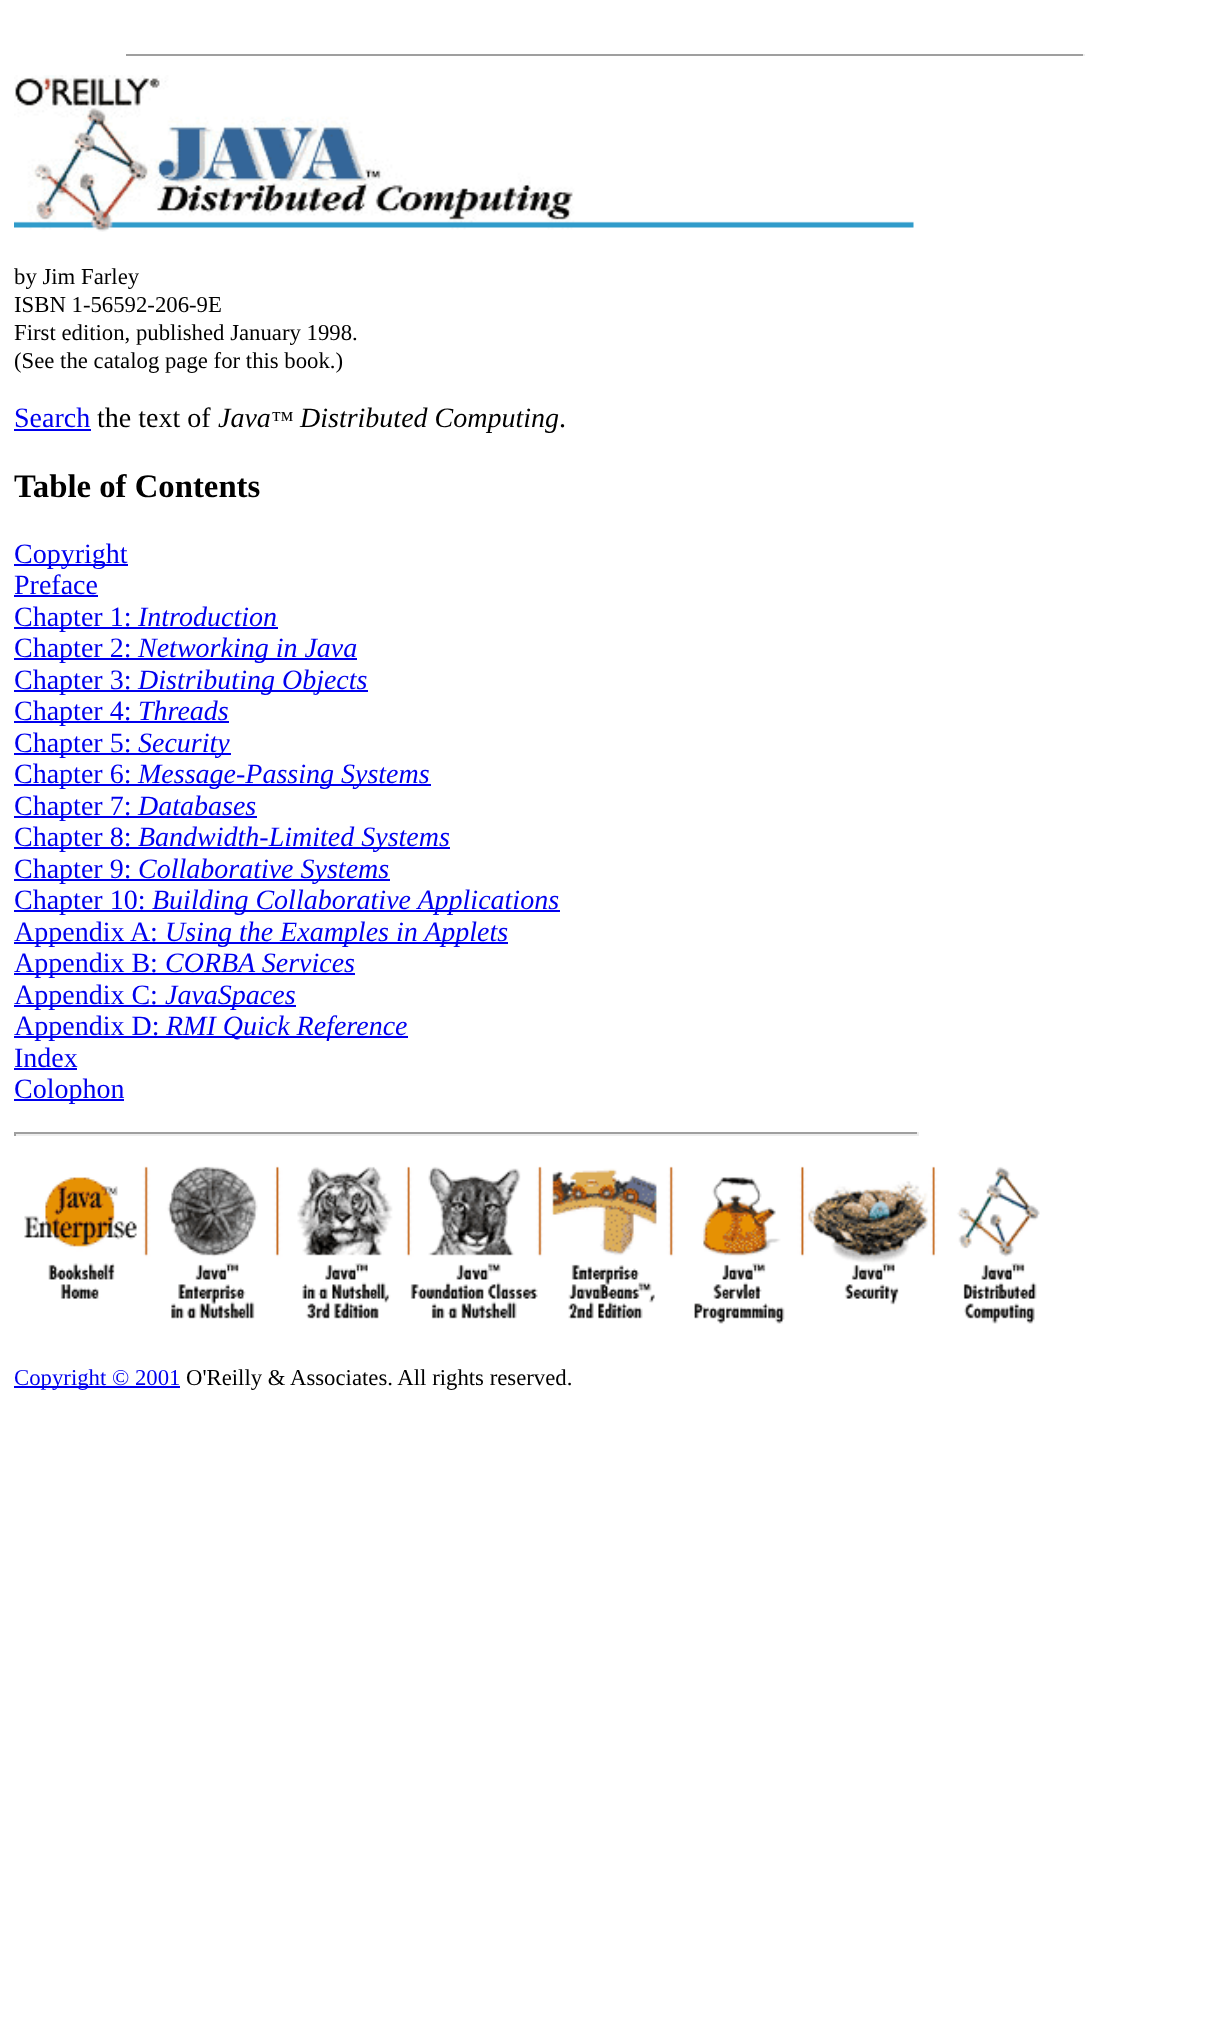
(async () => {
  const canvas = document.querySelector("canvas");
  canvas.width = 1210;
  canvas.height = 2018;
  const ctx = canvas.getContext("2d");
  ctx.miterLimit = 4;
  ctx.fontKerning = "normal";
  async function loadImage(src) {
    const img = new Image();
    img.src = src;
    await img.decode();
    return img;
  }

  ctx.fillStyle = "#ffffff";
  ctx.fillRect(0, 0, 1210, 2018);
  ctx.fillStyle = "#9f9f9f";
  ctx.fillRect(126, 54, 959, 2);
  ctx.fillStyle = "#eeeeee";
  ctx.fillRect(1083, 54, 2, 2);
  ctx.drawImage(await loadImage("img/1.png"), 14, 75, 900, 157);
  for (const [x, y, w, h, color] of [
    [14, 429, 77, 2, "#0000ee"],
    [14, 564, 114, 2, "#0000ee"],
    [14, 595, 84, 2, "#0000ee"],
    [14, 627, 264, 2, "#0000ee"],
    [14, 658, 343, 2, "#0000ee"],
    [14, 690, 354, 2, "#0000ee"],
    [14, 721, 215, 2, "#0000ee"],
    [14, 753, 217, 2, "#0000ee"],
    [14, 784, 417, 2, "#0000ee"],
    [14, 816, 243, 2, "#0000ee"],
    [14, 847, 436, 2, "#0000ee"],
    [14, 879, 376, 2, "#0000ee"],
    [14, 910, 546, 2, "#0000ee"],
    [14, 942, 494, 2, "#0000ee"],
    [14, 973, 341, 2, "#0000ee"],
    [14, 1005, 282, 2, "#0000ee"],
    [14, 1036, 394, 2, "#0000ee"],
    [14, 1068, 63, 2, "#0000ee"],
    [14, 1099, 110, 2, "#0000ee"],
    [14, 1132, 905, 2, "#9f9f9f"],
    [917, 1132, 2, 4, "#eeeeee"],
    [14, 1134, 905, 2, "#eeeeee"],
    [14, 1132, 2, 4, "#9f9f9f"],
  ]) {
    ctx.fillStyle = color;
    ctx.fillRect(x, y, w, h);
  }
  ctx.drawImage(await loadImage("img/2.png"), 24, 1166, 1016, 158);
  ctx.fillStyle = "#0000ee";
  ctx.fillRect(14, 1386, 166, 2);
  ctx.font = "22.75px Liberation Serif";
  ctx.fillStyle = "#000000";
  for (const [text, x, y] of [
    ["by Jim Farley", 14, 284],
    ["ISBN 1-56592-206-9E", 14, 312],
    ["First edition, published January 1998.", 14, 340],
    ["(See the catalog page for this book.)", 14, 368],
  ]) {
    ctx.fillText(text, x, y);
  }
  ctx.font = "28px Liberation Serif";
  ctx.fillStyle = "#0000ee";
  ctx.fillText("Search", 14, 427);
  ctx.fillStyle = "#000000";
  ctx.fillText("the text of", 97, 427);
  ctx.font = "italic 28px Liberation Serif";
  ctx.fillText("Java", 218, 427);
  ctx.font = "italic 22.75px Liberation Serif";
  ctx.fillText("™", 271, 427);
  ctx.font = "italic 28px Liberation Serif";
  ctx.fillText("Distributed Computing", 300, 427);
  ctx.font = "28px Liberation Serif";
  ctx.fillText(".", 559, 427);
  ctx.font = "bold 32.75px Liberation Serif";
  ctx.fillText("Table of Contents", 14, 497);
  ctx.font = "28px Liberation Serif";
  ctx.fillStyle = "#0000ee";
  for (const [text, x, y] of [
    ["Copyright", 14, 563],
    ["Preface", 14, 594],
    ["Chapter 1:", 14, 626],
  ]) {
    ctx.fillText(text, x, y);
  }
  ctx.font = "italic 28px Liberation Serif";
  ctx.fillText("Introduction", 138, 626);
  ctx.font = "28px Liberation Serif";
  ctx.fillText("Chapter 2:", 14, 657);
  ctx.font = "italic 28px Liberation Serif";
  ctx.fillText("Networking in Java", 138, 657);
  ctx.font = "28px Liberation Serif";
  ctx.fillText("Chapter 3:", 14, 689);
  ctx.font = "italic 28px Liberation Serif";
  ctx.fillText("Distributing Objects", 138, 689);
  ctx.font = "28px Liberation Serif";
  ctx.fillText("Chapter 4:", 14, 720);
  ctx.font = "italic 28px Liberation Serif";
  ctx.fillText("Threads", 138, 720);
  ctx.font = "28px Liberation Serif";
  ctx.fillText("Chapter 5:", 14, 752);
  ctx.font = "italic 28px Liberation Serif";
  ctx.fillText("Security", 138, 752);
  ctx.font = "28px Liberation Serif";
  ctx.fillText("Chapter 6:", 14, 783);
  ctx.font = "italic 28px Liberation Serif";
  ctx.fillText("Message-Passing Systems", 138, 783);
  ctx.font = "28px Liberation Serif";
  ctx.fillText("Chapter 7:", 14, 815);
  ctx.font = "italic 28px Liberation Serif";
  ctx.fillText("Databases", 138, 815);
  ctx.font = "28px Liberation Serif";
  ctx.fillText("Chapter 8:", 14, 846);
  ctx.font = "italic 28px Liberation Serif";
  ctx.fillText("Bandwidth-Limited Systems", 138, 846);
  ctx.font = "28px Liberation Serif";
  ctx.fillText("Chapter 9:", 14, 878);
  ctx.font = "italic 28px Liberation Serif";
  ctx.fillText("Collaborative Systems", 138, 878);
  ctx.font = "28px Liberation Serif";
  ctx.fillText("Chapter 10:", 14, 909);
  ctx.font = "italic 28px Liberation Serif";
  ctx.fillText("Building Collaborative Applications", 152, 909);
  ctx.font = "28px Liberation Serif";
  ctx.fillText("Appendix A:", 14, 941);
  ctx.font = "italic 28px Liberation Serif";
  ctx.fillText("Using the Examples in Applets", 165, 941);
  ctx.font = "28px Liberation Serif";
  ctx.fillText("Appendix B:", 14, 972);
  ctx.font = "italic 28px Liberation Serif";
  ctx.fillText("CORBA Services", 165, 972);
  ctx.font = "28px Liberation Serif";
  ctx.fillText("Appendix C:", 14, 1004);
  ctx.font = "italic 28px Liberation Serif";
  ctx.fillText("JavaSpaces", 165, 1004);
  ctx.font = "28px Liberation Serif";
  ctx.fillText("Appendix D:", 14, 1035);
  ctx.font = "italic 28px Liberation Serif";
  ctx.fillText("RMI Quick Reference", 166, 1035);
  ctx.font = "28px Liberation Serif";
  ctx.fillText("Index", 14, 1067);
  ctx.fillText("Colophon", 14, 1098);
  ctx.font = "22.75px Liberation Serif";
  ctx.fillText("Copyright © 2001", 14, 1385);
  ctx.fillStyle = "#000000";
  ctx.fillText("O'Reilly & Associates. All rights reserved.", 186, 1385);
})();
